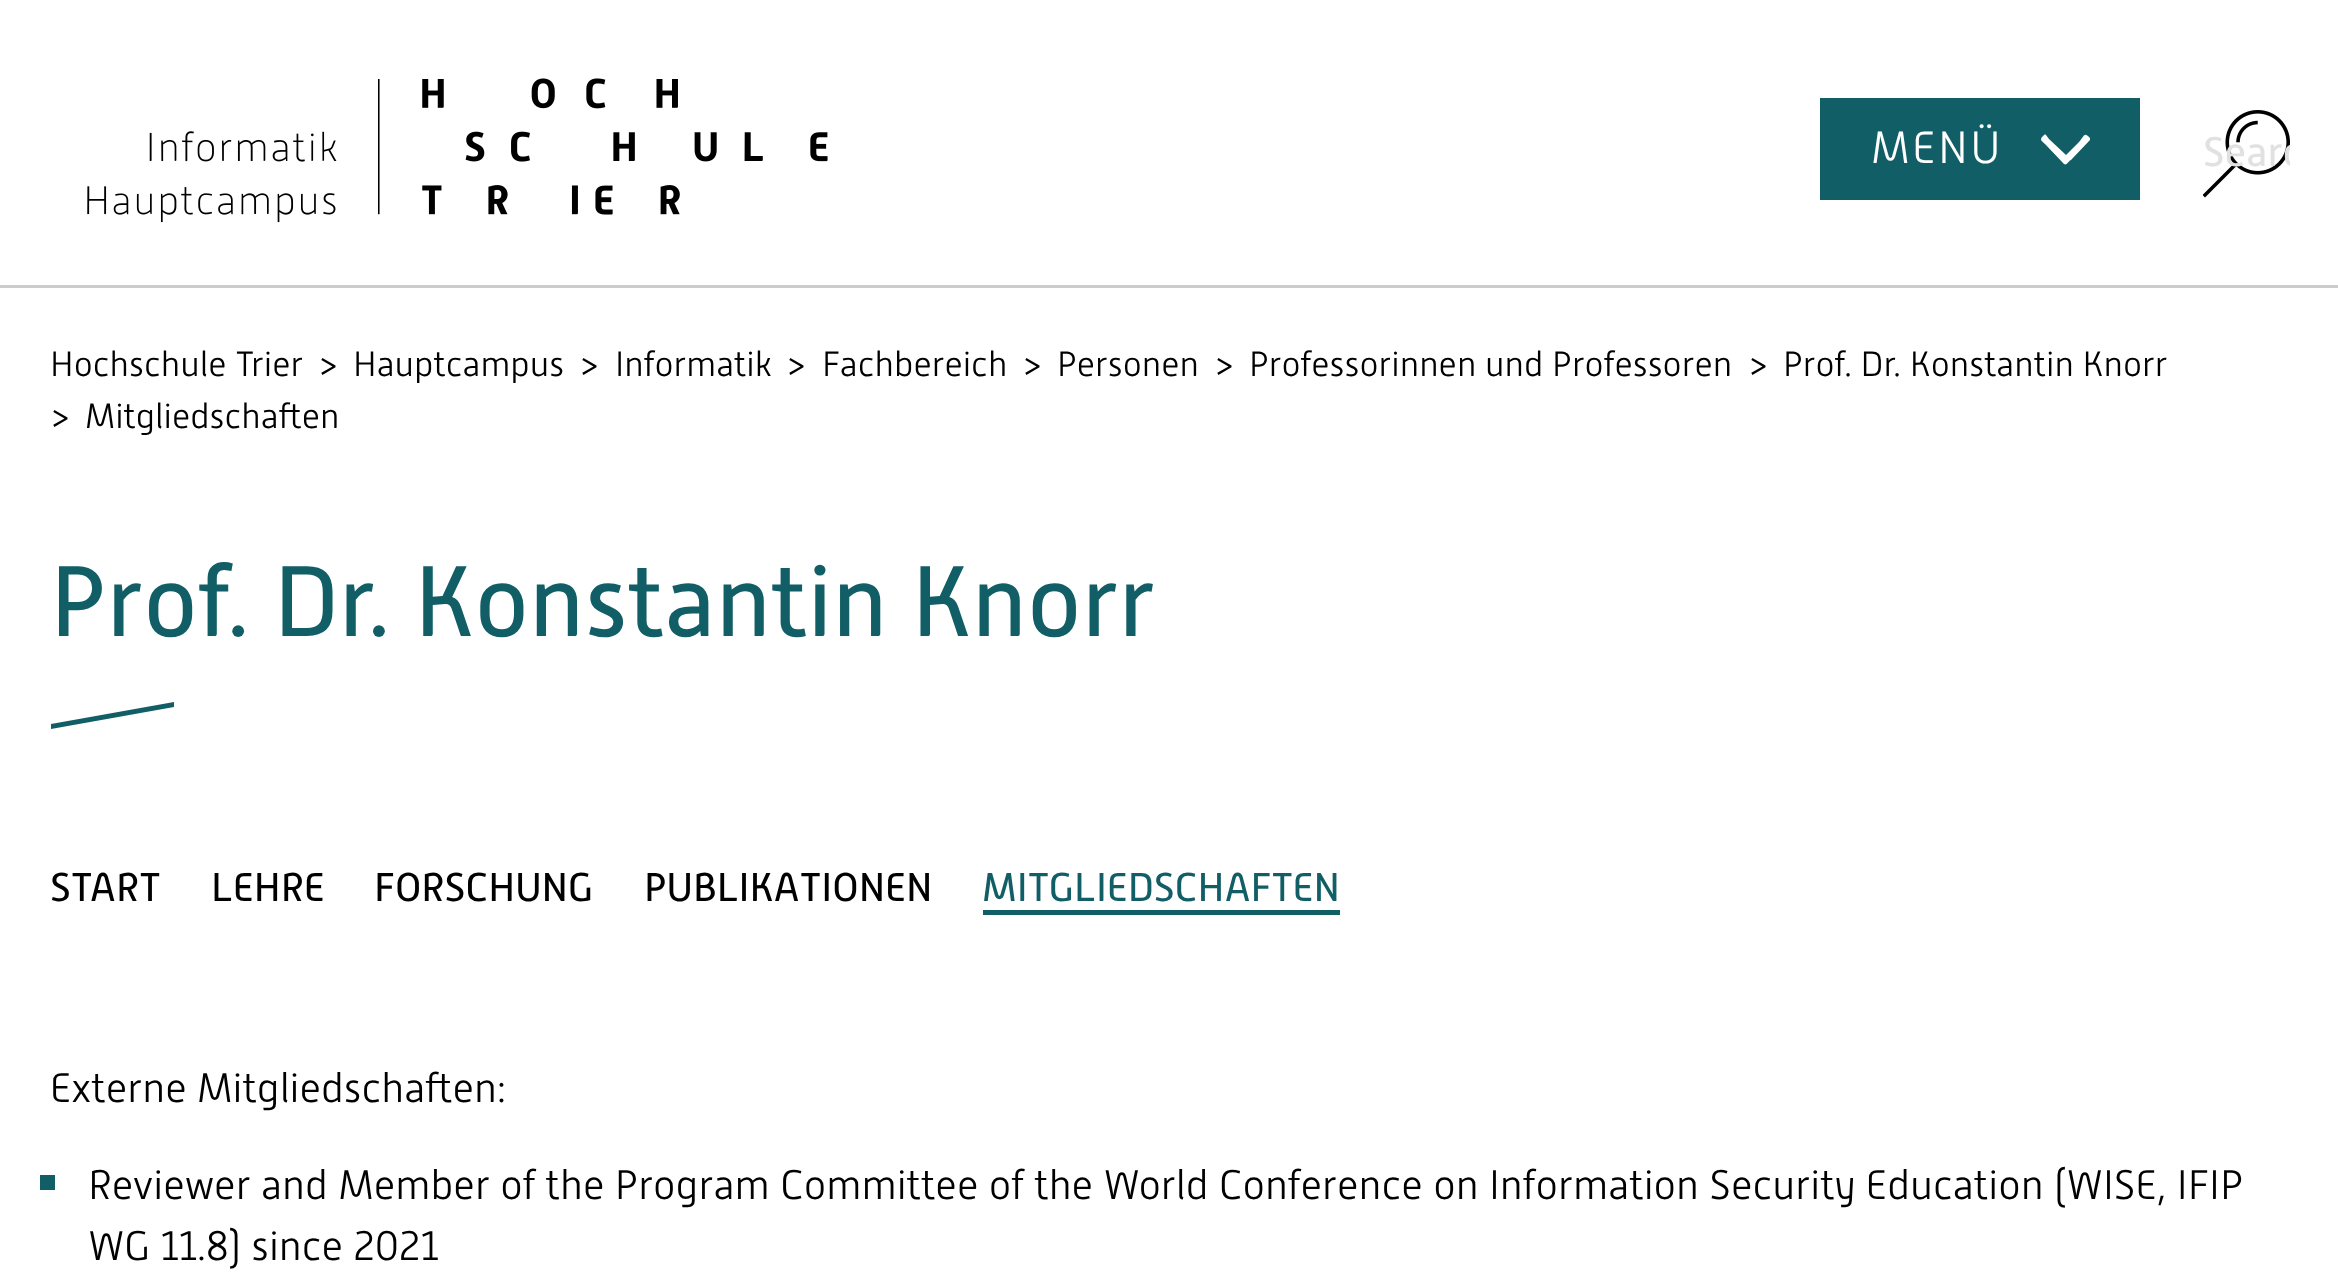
(async () => {
  const canvas = document.querySelector("canvas");
  canvas.width = 2338;
  canvas.height = 1285;
  const ctx = canvas.getContext("2d");
  ctx.miterLimit = 4;
  ctx.fontKerning = "normal";
  async function loadImage(src) {
    const img = new Image();
    img.src = src;
    await img.decode();
    return img;
  }
  let path;

  ctx.fillStyle = "#ffffff";
  ctx.fillRect(0, 0, 2338, 1285);
  ctx.fillStyle = "#cccccc";
  ctx.fillRect(0, 285, 2338, 3);
  ctx.drawImage(await loadImage("img/1.png"), 87, 78, 741, 145);
  ctx.fillStyle = "#115e67";
  ctx.fillRect(1820, 98, 320, 102);
  ctx.fillStyle = "#ffffff";
  path = new Path2D("M2064 164C2067 166 2069 160 2071 160L2090 140V138C2084 132 2085 135 2079 142L2066 155L2049 139L2046 135C2045 134 2044 135 2043 136C2039 140 2042 141 2045 144Z");
  ctx.fill(path);
  ctx.drawImage(await loadImage("img/2.png"), 2203, 110, 87, 88);
  ctx.fillStyle = "#115e67";
  path = new Path2D("M51 724L174 702V707L51 729Z");
  ctx.fill(path);
  ctx.fillRect(983, 910, 357, 5);
  ctx.fillRect(40, 1175, 15, 15);
  ctx.letterSpacing = "2.5px";
  ctx.font = "300 45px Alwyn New";
  ctx.fillStyle = "#ffffff";
  ctx.fillText("MENÜ", 1871, 163);
  ctx.save();
  ctx.beginPath();
  ctx.rect(2203, 110, 87, 88);
  ctx.clip();
  ctx.letterSpacing = "0px";
  ctx.font = "41.25px Alwyn New";
  ctx.fillStyle = "#e1e1e1";
  ctx.fillText("Searc", 2203, 166);
  ctx.restore();
  ctx.letterSpacing = "0px";
  ctx.font = "300 35px Alwyn New";
  ctx.fillStyle = "#000000";
  for (const [text, x, y] of [
    ["Hochschule Trier", 50, 376],
    [">", 318, 376],
    ["Hauptcampus", 353, 376],
    [">", 579, 376],
    ["Informatik", 615, 376],
    [">", 786, 376],
    ["Fachbereich", 822, 376],
    [">", 1022, 376],
    ["Personen", 1057, 376],
    [">", 1214, 376],
    ["Professorinnen und Professoren", 1249, 376],
    [">", 1748, 376],
    ["Prof. Dr. Konstantin Knorr", 1783, 376],
    [">", 50, 428],
    ["Mitgliedschaften", 85, 428],
  ]) {
    ctx.fillText(text, x, y);
  }
  ctx.font = "100px Alwyn New";
  ctx.fillStyle = "#115e67";
  ctx.fillText("Prof. Dr. Konstantin Knorr", 50, 636);
  ctx.font = "40px Alwyn New";
  ctx.fillStyle = "#000000";
  for (const [text, x, y] of [
    ["START", 50, 901],
    ["LEHRE", 211, 901],
    ["FORSCHUNG", 374, 901],
    ["PUBLIKATIONEN", 644, 901],
  ]) {
    ctx.fillText(text, x, y);
  }
  ctx.fillStyle = "#115e67";
  ctx.fillText("MITGLIEDSCHAFTEN", 982, 901);
  ctx.font = "300 41.25px Alwyn New";
  ctx.fillStyle = "#000000";
  for (const [text, x, y] of [
    ["Externe Mitgliedschaften:", 50, 1102],
    ["Reviewer and Member of the Program Committee of the World Conference on Information Security Education (WISE, IFIP", 88, 1199],
    ["WG 11.8) since 2021", 88, 1260],
  ]) {
    ctx.fillText(text, x, y);
  }
})();
